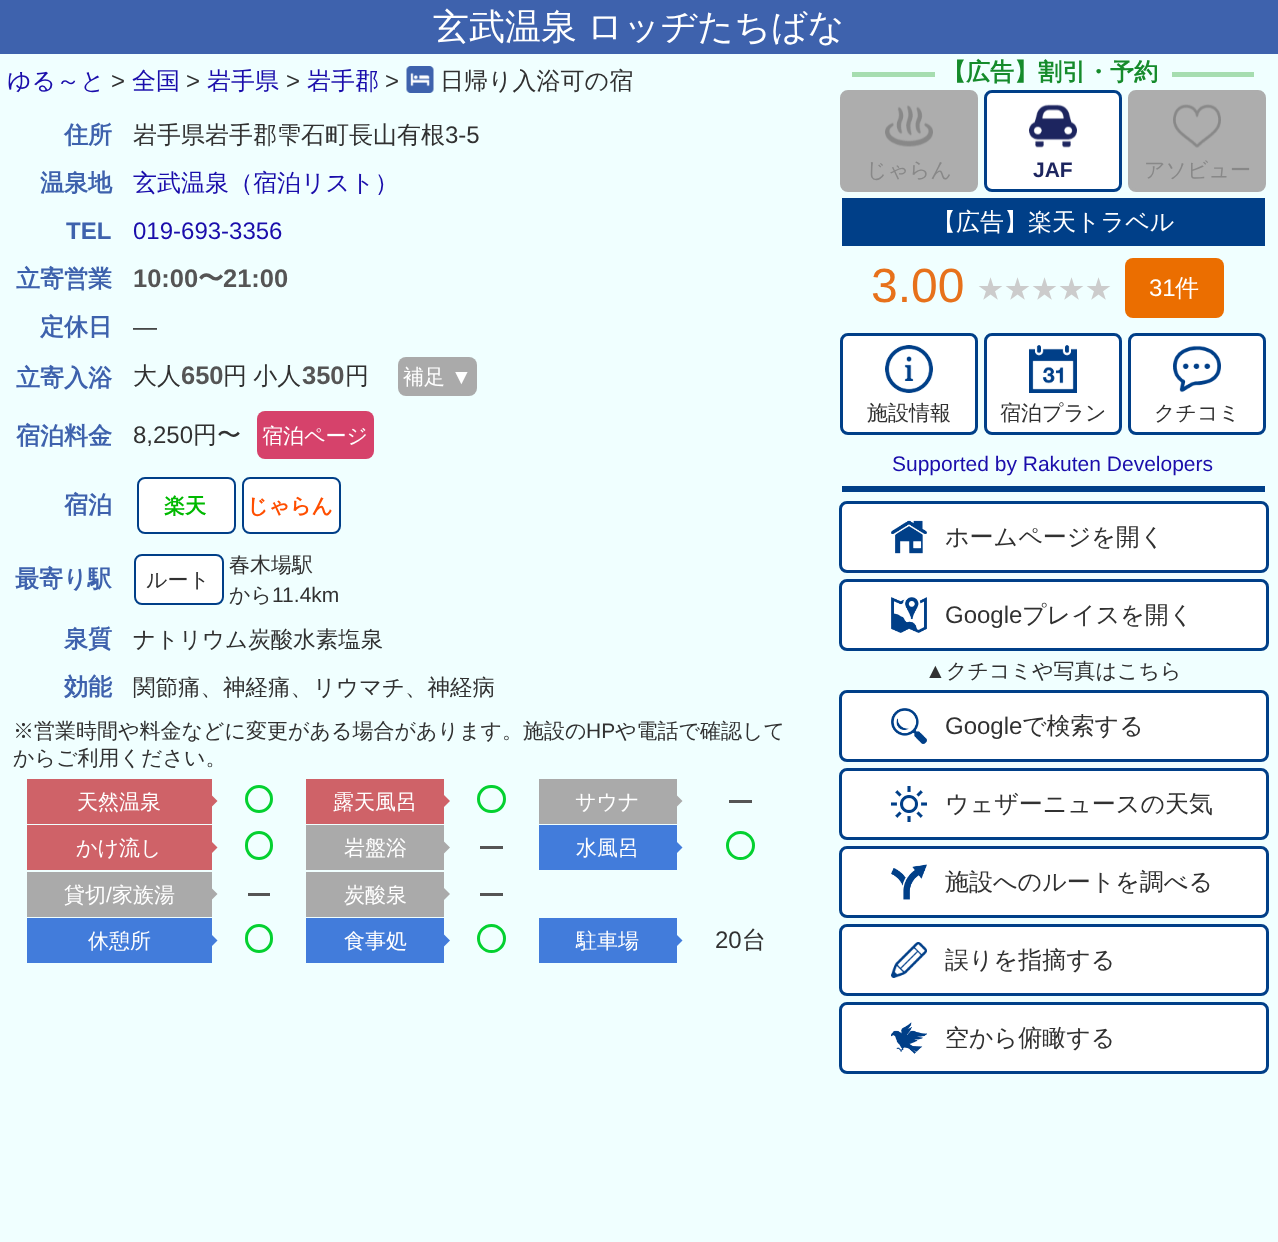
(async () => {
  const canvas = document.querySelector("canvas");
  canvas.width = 1278;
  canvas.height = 1242;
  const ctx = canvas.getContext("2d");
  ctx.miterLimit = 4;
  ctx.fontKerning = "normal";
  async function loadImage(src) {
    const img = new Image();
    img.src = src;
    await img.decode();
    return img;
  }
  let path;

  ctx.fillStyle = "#f0ffff";
  ctx.fillRect(0, 0, 1278, 1242);
  ctx.fillStyle = "#3e62ad";
  ctx.fillRect(0, 0, 1278, 54);
  ctx.drawImage(await loadImage("img/1.png"), 406, 66, 28, 27);
  ctx.fillStyle = "#aaaaaa";
  ctx.beginPath();
  ctx.roundRect(398, 357, 79, 39, 8);
  ctx.fill();
  ctx.fillStyle = "#d6426b";
  ctx.beginPath();
  ctx.roundRect(257, 411, 117, 48, 8);
  ctx.fill();
  ctx.fillStyle = "#ffffff";
  ctx.beginPath();
  ctx.roundRect(138, 478, 97, 55, 7);
  ctx.fill();
  ctx.strokeStyle = "#003f88";
  ctx.lineWidth = 2;
  ctx.stroke();
  ctx.beginPath();
  ctx.roundRect(243, 478, 97, 55, 7);
  ctx.fill();
  ctx.stroke();
  ctx.beginPath();
  ctx.roundRect(135, 555, 88, 49, 7);
  ctx.fill();
  ctx.stroke();
  ctx.fillStyle = "#cf6268";
  ctx.fillRect(27, 779, 185, 45);
  path = new Path2D("M210 808.5V793.5L217.5 801Z");
  ctx.fill(path);
  ctx.beginPath();
  ctx.arc(259, 799, 12.5, 0, Math.PI * 2);
  ctx.strokeStyle = "#04d130";
  ctx.lineWidth = 3;
  ctx.stroke();
  ctx.fillRect(306, 779, 138, 45);
  path = new Path2D("M442.5 808.5V793.5L450 801Z");
  ctx.fill(path);
  ctx.beginPath();
  ctx.roundRect(478.5, 786.5, 26, 25, 12.5);
  ctx.stroke();
  ctx.fillStyle = "#aaaaaa";
  ctx.fillRect(539, 779, 138, 45);
  path = new Path2D("M675 808.5V793.5L682.5 801Z");
  ctx.fill(path);
  ctx.fillStyle = "#555555";
  ctx.fillRect(729, 800, 23, 3);
  ctx.fillStyle = "#cf6268";
  ctx.fillRect(27, 825, 185, 45);
  path = new Path2D("M210 855V840L217.5 847.5Z");
  ctx.fill(path);
  ctx.beginPath();
  ctx.roundRect(246.5, 832.5, 25, 26, 12.5);
  ctx.stroke();
  ctx.fillStyle = "#aaaaaa";
  ctx.fillRect(306, 825, 138, 45);
  path = new Path2D("M442.5 855V840L450 847.5Z");
  ctx.fill(path);
  ctx.fillStyle = "#555555";
  ctx.fillRect(480, 846, 23, 3);
  ctx.fillStyle = "#427cdb";
  ctx.fillRect(539, 825, 138, 45);
  path = new Path2D("M675 855V840L682.5 847.5Z");
  ctx.fill(path);
  ctx.beginPath();
  ctx.arc(740.5, 845.5, 13, 0, Math.PI * 2);
  ctx.stroke();
  ctx.fillStyle = "#aaaaaa";
  ctx.fillRect(27, 872, 185, 45);
  path = new Path2D("M210 901.5V886.5L217.5 894Z");
  ctx.fill(path);
  ctx.fillStyle = "#555555";
  ctx.fillRect(248, 893, 22, 3);
  ctx.fillStyle = "#aaaaaa";
  ctx.fillRect(306, 872, 138, 45);
  path = new Path2D("M442.5 901.5V886.5L450 894Z");
  ctx.fill(path);
  ctx.fillStyle = "#555555";
  ctx.fillRect(480, 893, 23, 3);
  ctx.fillStyle = "#427cdb";
  ctx.fillRect(27, 918, 185, 45);
  path = new Path2D("M210 948V933L217.5 940.5Z");
  ctx.fill(path);
  ctx.beginPath();
  ctx.roundRect(246.5, 925.5, 25, 26, 12.5);
  ctx.stroke();
  ctx.fillRect(306, 918, 138, 45);
  path = new Path2D("M442.5 948V933L450 940.5Z");
  ctx.fill(path);
  ctx.beginPath();
  ctx.arc(491.5, 938.5, 13, 0, Math.PI * 2);
  ctx.stroke();
  ctx.fillRect(539, 918, 138, 45);
  path = new Path2D("M675 948V933L682.5 940.5Z");
  ctx.fill(path);
  ctx.fillStyle = "#a6ddb0";
  ctx.fillRect(852, 72, 83, 5);
  ctx.fillRect(1172, 72, 82, 5);
  ctx.fillStyle = "#adadad";
  ctx.beginPath();
  ctx.roundRect(841.5, 91.5, 135, 99, 6.5);
  ctx.fill();
  ctx.strokeStyle = "#adadad";
  ctx.stroke();
  ctx.drawImage(await loadImage("img/2.png"), 885, 105, 48, 42);
  ctx.fillStyle = "#ffffff";
  ctx.beginPath();
  ctx.roundRect(985.5, 91.5, 135, 99, 6.5);
  ctx.fill();
  ctx.strokeStyle = "#003f88";
  ctx.stroke();
  ctx.drawImage(await loadImage("img/3.png"), 1029, 104, 48, 44);
  ctx.fillStyle = "#adadad";
  ctx.beginPath();
  ctx.roundRect(1129.5, 91.5, 135, 99, 6.5);
  ctx.fill();
  ctx.strokeStyle = "#adadad";
  ctx.stroke();
  ctx.drawImage(await loadImage("img/4.png"), 1173, 104, 48, 44);
  ctx.fillStyle = "#003f88";
  ctx.fillRect(842, 198, 423, 48);
  ctx.fillStyle = "#eb6e00";
  ctx.beginPath();
  ctx.roundRect(1125, 258, 99, 60, 8);
  ctx.fill();
  ctx.fillStyle = "#ffffff";
  ctx.beginPath();
  ctx.roundRect(841.5, 334.5, 135, 99, 6.5);
  ctx.fill();
  ctx.strokeStyle = "#003f88";
  ctx.stroke();
  ctx.drawImage(await loadImage("img/5.png"), 885, 345, 48, 48);
  ctx.beginPath();
  ctx.roundRect(985.5, 334.5, 135, 99, 6.5);
  ctx.fill();
  ctx.stroke();
  ctx.drawImage(await loadImage("img/6.png"), 1029, 345, 48, 48);
  ctx.beginPath();
  ctx.roundRect(1129.5, 334.5, 135, 99, 6.5);
  ctx.fill();
  ctx.stroke();
  ctx.drawImage(await loadImage("img/7.png"), 1173, 345, 48, 48);
  ctx.fillStyle = "#003f88";
  ctx.fillRect(842, 486, 423, 6);
  ctx.fillStyle = "#ffffff";
  ctx.beginPath();
  ctx.roundRect(840.5, 502.5, 427, 69, 6.5);
  ctx.fill();
  ctx.stroke();
  ctx.drawImage(await loadImage("img/8.png"), 891, 520, 36, 34);
  ctx.beginPath();
  ctx.roundRect(840.5, 580.5, 427, 69, 6.5);
  ctx.fill();
  ctx.stroke();
  ctx.drawImage(await loadImage("img/9.png"), 891, 597, 36, 36);
  ctx.beginPath();
  ctx.roundRect(840.5, 691.5, 427, 69, 6.5);
  ctx.fill();
  ctx.stroke();
  ctx.drawImage(await loadImage("img/10.png"), 891, 708, 36, 36);
  ctx.beginPath();
  ctx.roundRect(840.5, 769.5, 427, 69, 6.5);
  ctx.fill();
  ctx.stroke();
  ctx.drawImage(await loadImage("img/11.png"), 891, 786, 36, 36);
  ctx.beginPath();
  ctx.roundRect(840.5, 847.5, 427, 69, 6.5);
  ctx.fill();
  ctx.stroke();
  ctx.drawImage(await loadImage("img/12.png"), 891, 864, 36, 36);
  ctx.beginPath();
  ctx.roundRect(840.5, 925.5, 427, 69, 6.5);
  ctx.fill();
  ctx.stroke();
  ctx.drawImage(await loadImage("img/13.png"), 891, 942, 36, 36);
  ctx.beginPath();
  ctx.roundRect(840.5, 1003.5, 427, 69, 6.5);
  ctx.fill();
  ctx.stroke();
  ctx.drawImage(await loadImage("img/14.png"), 891, 1022, 36, 32);
  ctx.wordSpacing = "-1px";
  ctx.font = "500 36px WenQuanYi Zen Hei";
  ctx.fillText("玄武温泉 ロッヂたちばな", 433, 39);
  ctx.wordSpacing = "0px";
  ctx.font = "500 24px WenQuanYi Zen Hei";
  ctx.fillStyle = "#1a0dab";
  ctx.fillText("ゆる～と", 7, 89);
  ctx.font = "24px Liberation Sans";
  ctx.fillStyle = "#313131";
  ctx.fillText(">", 111, 89);
  ctx.font = "500 24px WenQuanYi Zen Hei";
  ctx.fillStyle = "#1a0dab";
  ctx.fillText("全国", 132, 89);
  ctx.font = "24px Liberation Sans";
  ctx.fillStyle = "#313131";
  ctx.fillText(">", 186, 89);
  ctx.font = "500 24px WenQuanYi Zen Hei";
  ctx.fillStyle = "#1a0dab";
  ctx.fillText("岩手県", 207, 89);
  ctx.font = "24px Liberation Sans";
  ctx.fillStyle = "#313131";
  ctx.fillText(">", 286, 89);
  ctx.font = "500 24px WenQuanYi Zen Hei";
  ctx.fillStyle = "#1a0dab";
  ctx.fillText("岩手郡", 307, 89);
  ctx.font = "24px Liberation Sans";
  ctx.fillStyle = "#313131";
  ctx.fillText(">", 385, 89);
  ctx.font = "500 24px WenQuanYi Zen Hei";
  ctx.fillText("日帰り入浴可の宿", 440, 89);
  ctx.font = "bold 24px WenQuanYi Zen Hei";
  ctx.fillStyle = "#3e62ad";
  ctx.fillText("住所", 64, 143);
  ctx.font = "500 24px WenQuanYi Zen Hei";
  ctx.fillStyle = "#313131";
  ctx.fillText("岩手県岩手郡雫石町長山有根", 133, 143);
  ctx.font = "24px Liberation Sans";
  ctx.fillText("3-5", 445, 143);
  ctx.font = "bold 24px WenQuanYi Zen Hei";
  ctx.fillStyle = "#3e62ad";
  ctx.fillText("温泉地", 40, 191);
  ctx.font = "500 24px WenQuanYi Zen Hei";
  ctx.fillStyle = "#1a0dab";
  ctx.fillText("玄武温泉（宿泊リスト）", 133, 191);
  ctx.font = "bold 24px Liberation Sans";
  ctx.fillStyle = "#3e62ad";
  ctx.fillText("TEL", 66, 239);
  ctx.font = "24px Liberation Sans";
  ctx.fillStyle = "#1a0dab";
  ctx.fillText("019-693-3356", 133, 239);
  ctx.font = "bold 24px WenQuanYi Zen Hei";
  ctx.fillStyle = "#3e62ad";
  ctx.fillText("立寄営業", 16, 287);
  ctx.font = "bold 25.5px Liberation Sans";
  ctx.fillStyle = "#555555";
  ctx.fillText("10:00", 133, 287);
  ctx.font = "bold 25.5px WenQuanYi Zen Hei";
  ctx.fillText("〜", 198, 287);
  ctx.font = "bold 25.5px Liberation Sans";
  ctx.fillText("21:00", 223, 287);
  ctx.font = "bold 24px WenQuanYi Zen Hei";
  ctx.fillStyle = "#3e62ad";
  ctx.fillText("定休日", 40, 335);
  ctx.font = "24px Liberation Sans";
  ctx.fillStyle = "#313131";
  ctx.fillText("―", 133, 335);
  ctx.font = "bold 24px WenQuanYi Zen Hei";
  ctx.fillStyle = "#3e62ad";
  ctx.fillText("立寄入浴", 16, 386);
  ctx.font = "500 24px WenQuanYi Zen Hei";
  ctx.fillStyle = "#313131";
  ctx.fillText("大人", 133, 384);
  ctx.font = "bold 25.5px Liberation Sans";
  ctx.fillStyle = "#555555";
  ctx.fillText("650", 181, 384);
  ctx.wordSpacing = "-1px";
  ctx.font = "500 24px WenQuanYi Zen Hei";
  ctx.fillStyle = "#313131";
  ctx.fillText("円 小人", 223, 384);
  ctx.wordSpacing = "0px";
  ctx.font = "bold 25.5px Liberation Sans";
  ctx.fillStyle = "#555555";
  ctx.fillText("350", 302, 384);
  ctx.font = "500 24px WenQuanYi Zen Hei";
  ctx.fillStyle = "#313131";
  ctx.fillText("円", 345, 384);
  ctx.font = "500 21px WenQuanYi Zen Hei";
  ctx.fillStyle = "#ffffff";
  ctx.fillText("補足", 403, 384);
  ctx.font = "21px Liberation Sans";
  ctx.fillText("▼", 451, 384);
  ctx.font = "bold 24px WenQuanYi Zen Hei";
  ctx.fillStyle = "#3e62ad";
  ctx.fillText("宿泊料金", 16, 444);
  ctx.font = "24px Liberation Sans";
  ctx.fillStyle = "#313131";
  ctx.fillText("8,250", 133, 443);
  ctx.font = "500 24px WenQuanYi Zen Hei";
  ctx.fillText("円〜", 193, 443);
  ctx.font = "500 21px WenQuanYi Zen Hei";
  ctx.fillStyle = "#ffffff";
  ctx.fillText("宿泊ページ", 262, 443);
  ctx.font = "bold 24px WenQuanYi Zen Hei";
  ctx.fillStyle = "#3e62ad";
  ctx.fillText("宿泊", 64, 513);
  ctx.font = "bold 21px WenQuanYi Zen Hei";
  ctx.fillStyle = "#00b900";
  ctx.fillText("楽天", 164, 513);
  ctx.fillStyle = "#ff4e00";
  ctx.fillText("じゃらん", 247, 513);
  ctx.font = "bold 24px WenQuanYi Zen Hei";
  ctx.fillStyle = "#3e62ad";
  ctx.fillText("最寄り駅", 15, 587);
  ctx.font = "500 21px WenQuanYi Zen Hei";
  ctx.fillStyle = "#313131";
  for (const [text, x, y] of [
    ["ルート", 146, 587],
    ["春木場駅", 229, 572],
    ["から", 229, 602],
  ]) {
    ctx.fillText(text, x, y);
  }
  ctx.font = "21px Liberation Sans";
  ctx.fillText("11.4km", 272, 602);
  ctx.font = "bold 24px WenQuanYi Zen Hei";
  ctx.fillStyle = "#3e62ad";
  ctx.fillText("泉質", 64, 647);
  ctx.font = "500 22.5px WenQuanYi Zen Hei";
  ctx.fillStyle = "#313131";
  ctx.fillText("ナトリウム炭酸水素塩泉", 133, 647);
  ctx.font = "bold 24px WenQuanYi Zen Hei";
  ctx.fillStyle = "#3e62ad";
  ctx.fillText("効能", 64, 695);
  ctx.font = "500 22.5px WenQuanYi Zen Hei";
  ctx.fillStyle = "#313131";
  ctx.fillText("関節痛、神経痛、リウマチ、神経病", 133, 695);
  ctx.font = "500 21px WenQuanYi Zen Hei";
  ctx.fillText("※営業時間や料金などに変更がある場合があります。施設の", 13, 738);
  ctx.font = "21px Liberation Sans";
  ctx.fillText("HP", 586, 738);
  ctx.font = "500 21px WenQuanYi Zen Hei";
  ctx.fillText("や電話で確認して", 615, 738);
  ctx.fillText("からご利用ください。", 13, 765);
  ctx.fillStyle = "#ffffff";
  for (const [text, x, y] of [
    ["天然温泉", 77, 809],
    ["露天風呂", 333, 809],
    ["サウナ", 575, 809],
    ["かけ流し", 76, 855],
    ["岩盤浴", 344, 855],
    ["水風呂", 576, 855],
    ["貸切", 64, 902],
  ]) {
    ctx.fillText(text, x, y);
  }
  ctx.font = "21px Liberation Sans";
  ctx.fillText("/", 106, 902);
  ctx.font = "500 21px WenQuanYi Zen Hei";
  for (const [text, x, y] of [
    ["家族湯", 112, 902],
    ["炭酸泉", 344, 902],
    ["休憩所", 88, 948],
    ["食事処", 344, 948],
    ["駐車場", 576, 948],
  ]) {
    ctx.fillText(text, x, y);
  }
  ctx.font = "24px Liberation Sans";
  ctx.fillStyle = "#313131";
  ctx.fillText("20", 715, 948);
  ctx.font = "500 24px WenQuanYi Zen Hei";
  ctx.fillText("台", 742, 948);
  ctx.font = "bold 24px WenQuanYi Zen Hei";
  ctx.fillStyle = "#158b2b";
  ctx.fillText("【広告】割引・予約", 942, 80);
  ctx.font = "500 21px WenQuanYi Zen Hei";
  ctx.fillStyle = "#888888";
  ctx.fillText("じゃらん", 866, 177);
  ctx.font = "bold 21px Liberation Sans";
  ctx.fillStyle = "#1d255f";
  ctx.fillText("JAF", 1033, 177);
  ctx.font = "500 21px WenQuanYi Zen Hei";
  ctx.fillStyle = "#888888";
  ctx.fillText("アソビュー", 1144, 177);
  ctx.font = "500 24px WenQuanYi Zen Hei";
  ctx.fillStyle = "#ffffff";
  ctx.fillText("【広告】楽天トラベル", 932, 230);
  ctx.font = "48px Liberation Sans";
  ctx.fillStyle = "#e7711b";
  ctx.fillText("3.00", 871, 302);
  ctx.font = "500 27px WenQuanYi Zen Hei";
  ctx.fillStyle = "#cccccc";
  ctx.fillText("★★★★★", 977, 298);
  ctx.font = "24px Liberation Sans";
  ctx.fillStyle = "#ffffff";
  ctx.fillText("31", 1149, 296);
  ctx.font = "500 24px WenQuanYi Zen Hei";
  ctx.fillText("件", 1175, 296);
  ctx.font = "500 21px WenQuanYi Zen Hei";
  ctx.fillStyle = "#313131";
  for (const [text, x, y] of [
    ["施設情報", 867, 420],
    ["宿泊プラン", 1000, 420],
    ["クチコミ", 1154, 420],
  ]) {
    ctx.fillText(text, x, y);
  }
  ctx.font = "21px Liberation Sans";
  ctx.fillStyle = "#1a0dab";
  ctx.fillText("Supported by Rakuten Developers", 892, 471);
  ctx.font = "500 24px WenQuanYi Zen Hei";
  ctx.fillStyle = "#313131";
  ctx.fillText("ホームページを開く", 945, 545);
  ctx.font = "24px Liberation Sans";
  ctx.fillText("Google", 945, 623);
  ctx.font = "500 24px WenQuanYi Zen Hei";
  ctx.fillText("プレイスを開く", 1022, 623);
  ctx.font = "21px Liberation Sans";
  ctx.fillText("▲", 925, 678);
  ctx.font = "500 21px WenQuanYi Zen Hei";
  ctx.fillText("クチコミや写真はこちら", 946, 678);
  ctx.font = "24px Liberation Sans";
  ctx.fillText("Google", 945, 734);
  ctx.font = "500 24px WenQuanYi Zen Hei";
  for (const [text, x, y] of [
    ["で検索する", 1022, 734],
    ["ウェザーニュースの天気", 945, 812],
    ["施設へのルートを調べる", 945, 890],
    ["誤りを指摘する", 945, 968],
    ["空から俯瞰する", 945, 1046],
  ]) {
    ctx.fillText(text, x, y);
  }
})();
